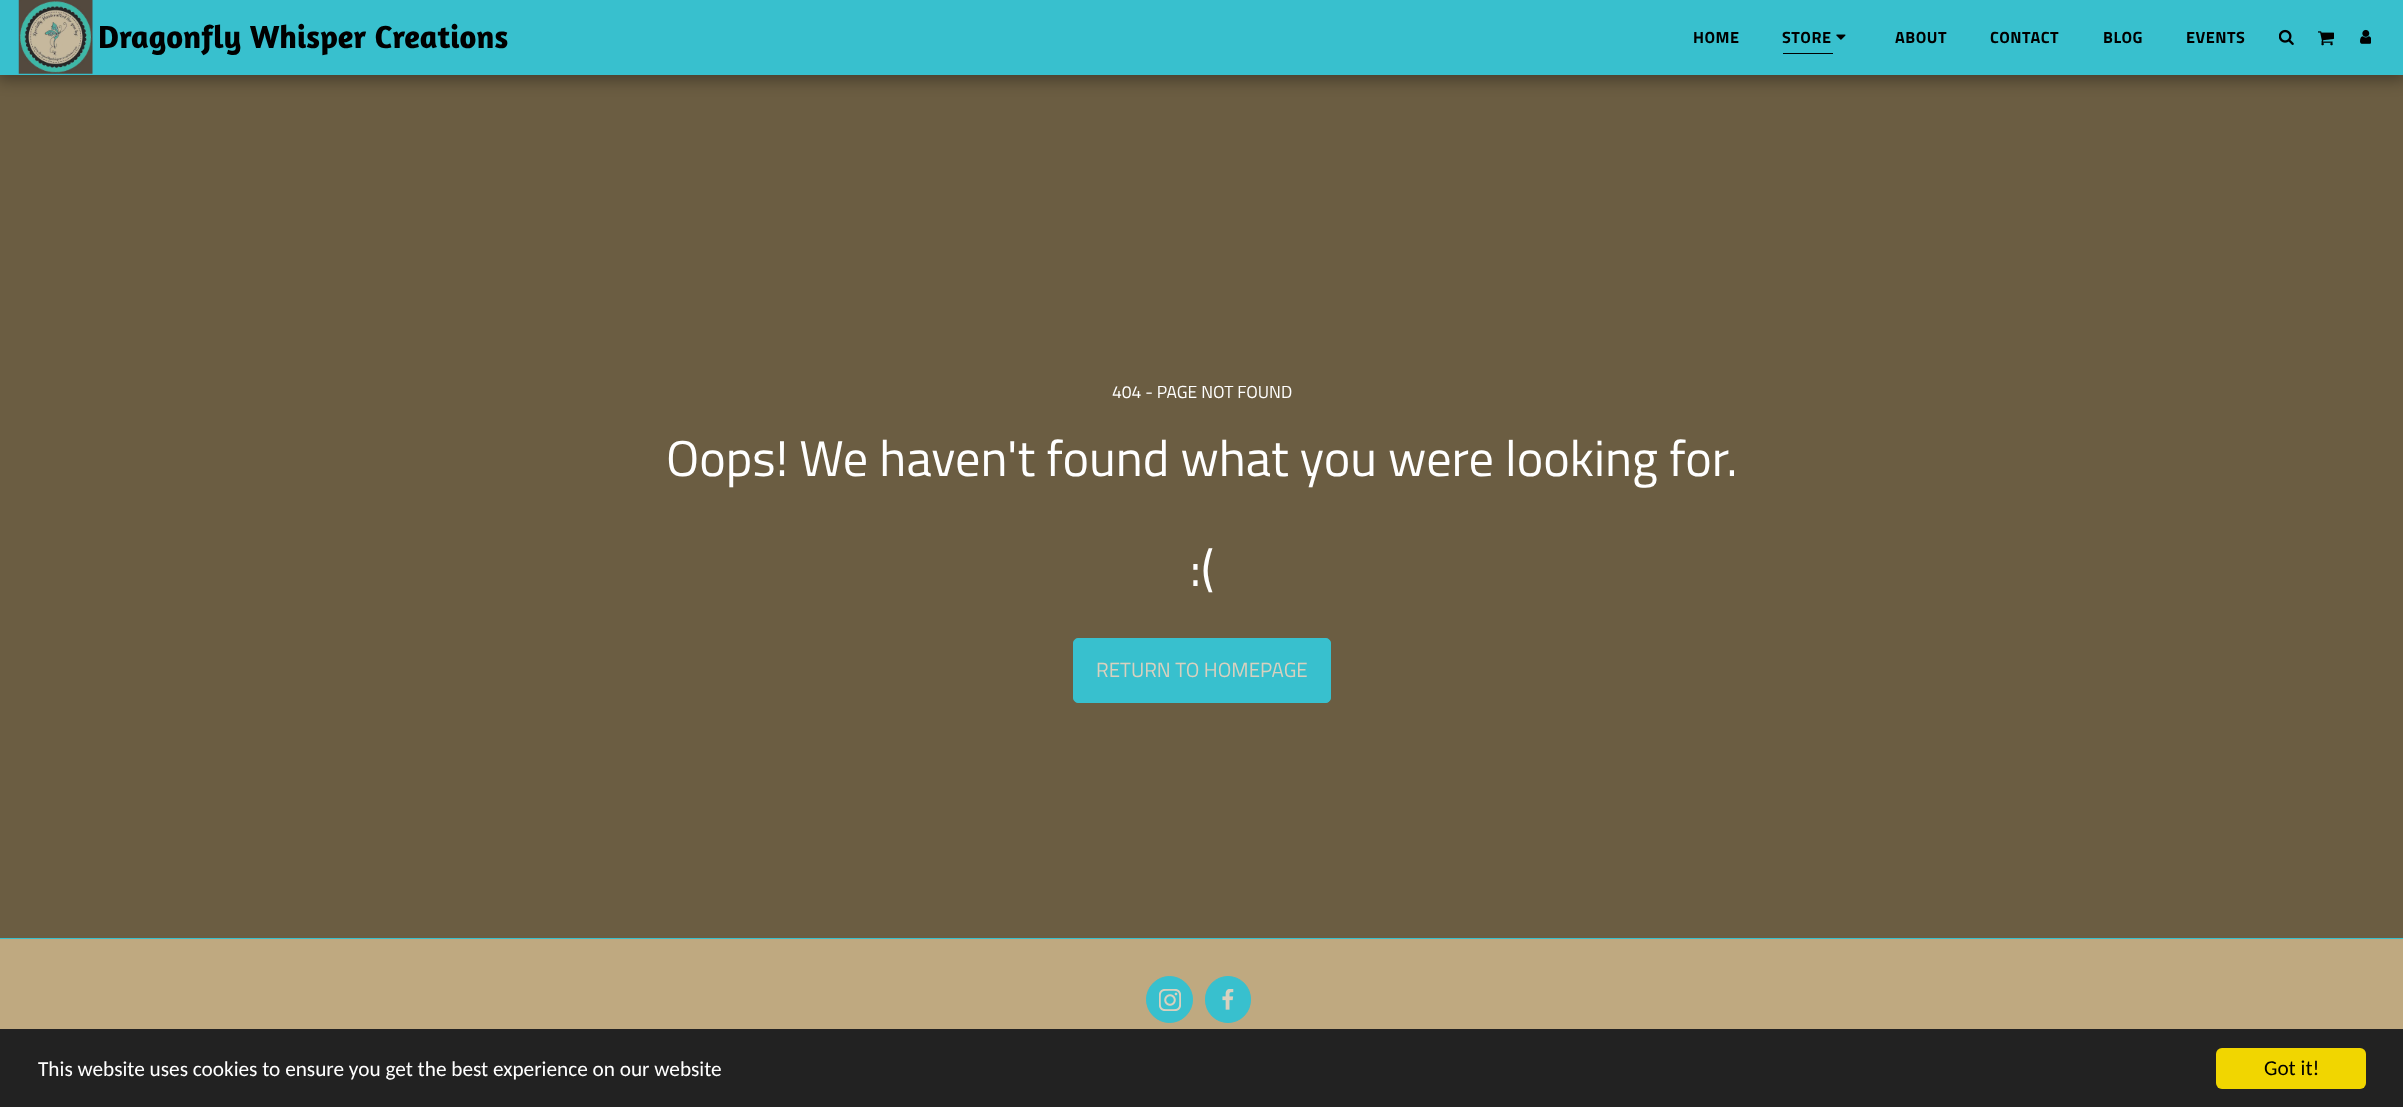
(async () => {
  const canvas = document.querySelector("canvas");
  canvas.width = 2403;
  canvas.height = 1107;
  const ctx = canvas.getContext("2d");
  ctx.miterLimit = 4;
  ctx.fontKerning = "normal";
  async function loadImage(src) {
    const img = new Image();
    img.src = src;
    await img.decode();
    return img;
  }

  ctx.fillStyle = "#6b5d42";
  ctx.fillRect(0, 0, 2403, 1107);
  ctx.fillStyle = "rgba(0, 0, 0, 0.35)";
  ctx.filter = "blur(7.5px)";
  ctx.beginPath();
  ctx.rect(-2, 0, 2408, 80);
  ctx.fill();
  ctx.filter = "none";
  ctx.fillStyle = "#38c0ce";
  ctx.fillRect(0, 0, 2403, 75);
  ctx.drawImage(await loadImage("img/1.png"), 18, 0, 75, 74);
  ctx.fillStyle = "#000000";
  ctx.fillRect(1783, 53, 50, 1);
  ctx.drawImage(await loadImage("img/2.png"), 1836, 34, 10, 6);
  ctx.drawImage(await loadImage("img/3.png"), 2279, 29, 15, 16);
  ctx.drawImage(await loadImage("img/4.png"), 2318, 31, 16, 15);
  ctx.drawImage(await loadImage("img/5.png"), 2360, 29, 11, 15);
  ctx.fillStyle = "#38c0ce";
  ctx.beginPath();
  ctx.roundRect(1073.5, 638.5, 257, 64, 4.5);
  ctx.fill();
  ctx.strokeStyle = "#38c0ce";
  ctx.stroke();
  ctx.fillRect(0, 938, 2403, 1);
  ctx.fillStyle = "#bfa980";
  ctx.fillRect(0, 939, 2403, 90);
  ctx.fillStyle = "#38c0ce";
  ctx.beginPath();
  ctx.arc(1169.5, 999.5, 23, 0, Math.PI * 2);
  ctx.fill();
  ctx.stroke();
  ctx.drawImage(await loadImage("img/6.png"), 1159, 989, 22, 22);
  ctx.beginPath();
  ctx.roundRect(1205.5, 976.5, 45, 46, 22.5);
  ctx.fill();
  ctx.stroke();
  ctx.drawImage(await loadImage("img/7.png"), 1222, 989, 12, 21);
  ctx.fillStyle = "#222222";
  ctx.fillRect(0, 1029, 2403, 78);
  ctx.fillStyle = "#f1d600";
  ctx.beginPath();
  ctx.roundRect(2216, 1048, 150, 41, 6);
  ctx.fill();
  ctx.font = "bold 32.5px Amaranth";
  ctx.fillStyle = "#000000";
  ctx.fillText("Dragonfly Whisper Creations", 98, 48);
  ctx.letterSpacing = "0.5px";
  ctx.font = "bold 16.25px Titillium Web";
  for (const [text, x, y] of [
    ["HOME", 1693, 43],
    ["STORE", 1782, 43],
    ["ABOUT", 1895, 43],
    ["CONTACT", 1990, 43],
    ["BLOG", 2103, 43],
    ["EVENTS", 2186, 43],
  ]) {
    ctx.fillText(text, x, y);
  }
  ctx.letterSpacing = "0px";
  ctx.font = "17.5px Titillium Web";
  ctx.fillStyle = "#ffffff";
  ctx.fillText("404 - PAGE NOT FOUND", 1112, 398);
  ctx.font = "50.35px Titillium Web";
  ctx.fillText("Oops! We haven't found what you were looking for.", 666, 476);
  ctx.fillText(":(", 1190, 586);
  ctx.font = "20.6px Titillium Web";
  ctx.fillStyle = "#d9d0be";
  ctx.fillText("RETURN TO HOMEPAGE", 1096, 677);
  ctx.font = "21.25px Carlito";
  ctx.fillStyle = "#ffffff";
  ctx.fillText("This website uses cookies to ensure you get the best experience on our website", 38, 1076);
  ctx.fillStyle = "#000000";
  ctx.fillText("Got it!", 2264, 1075);
})();
